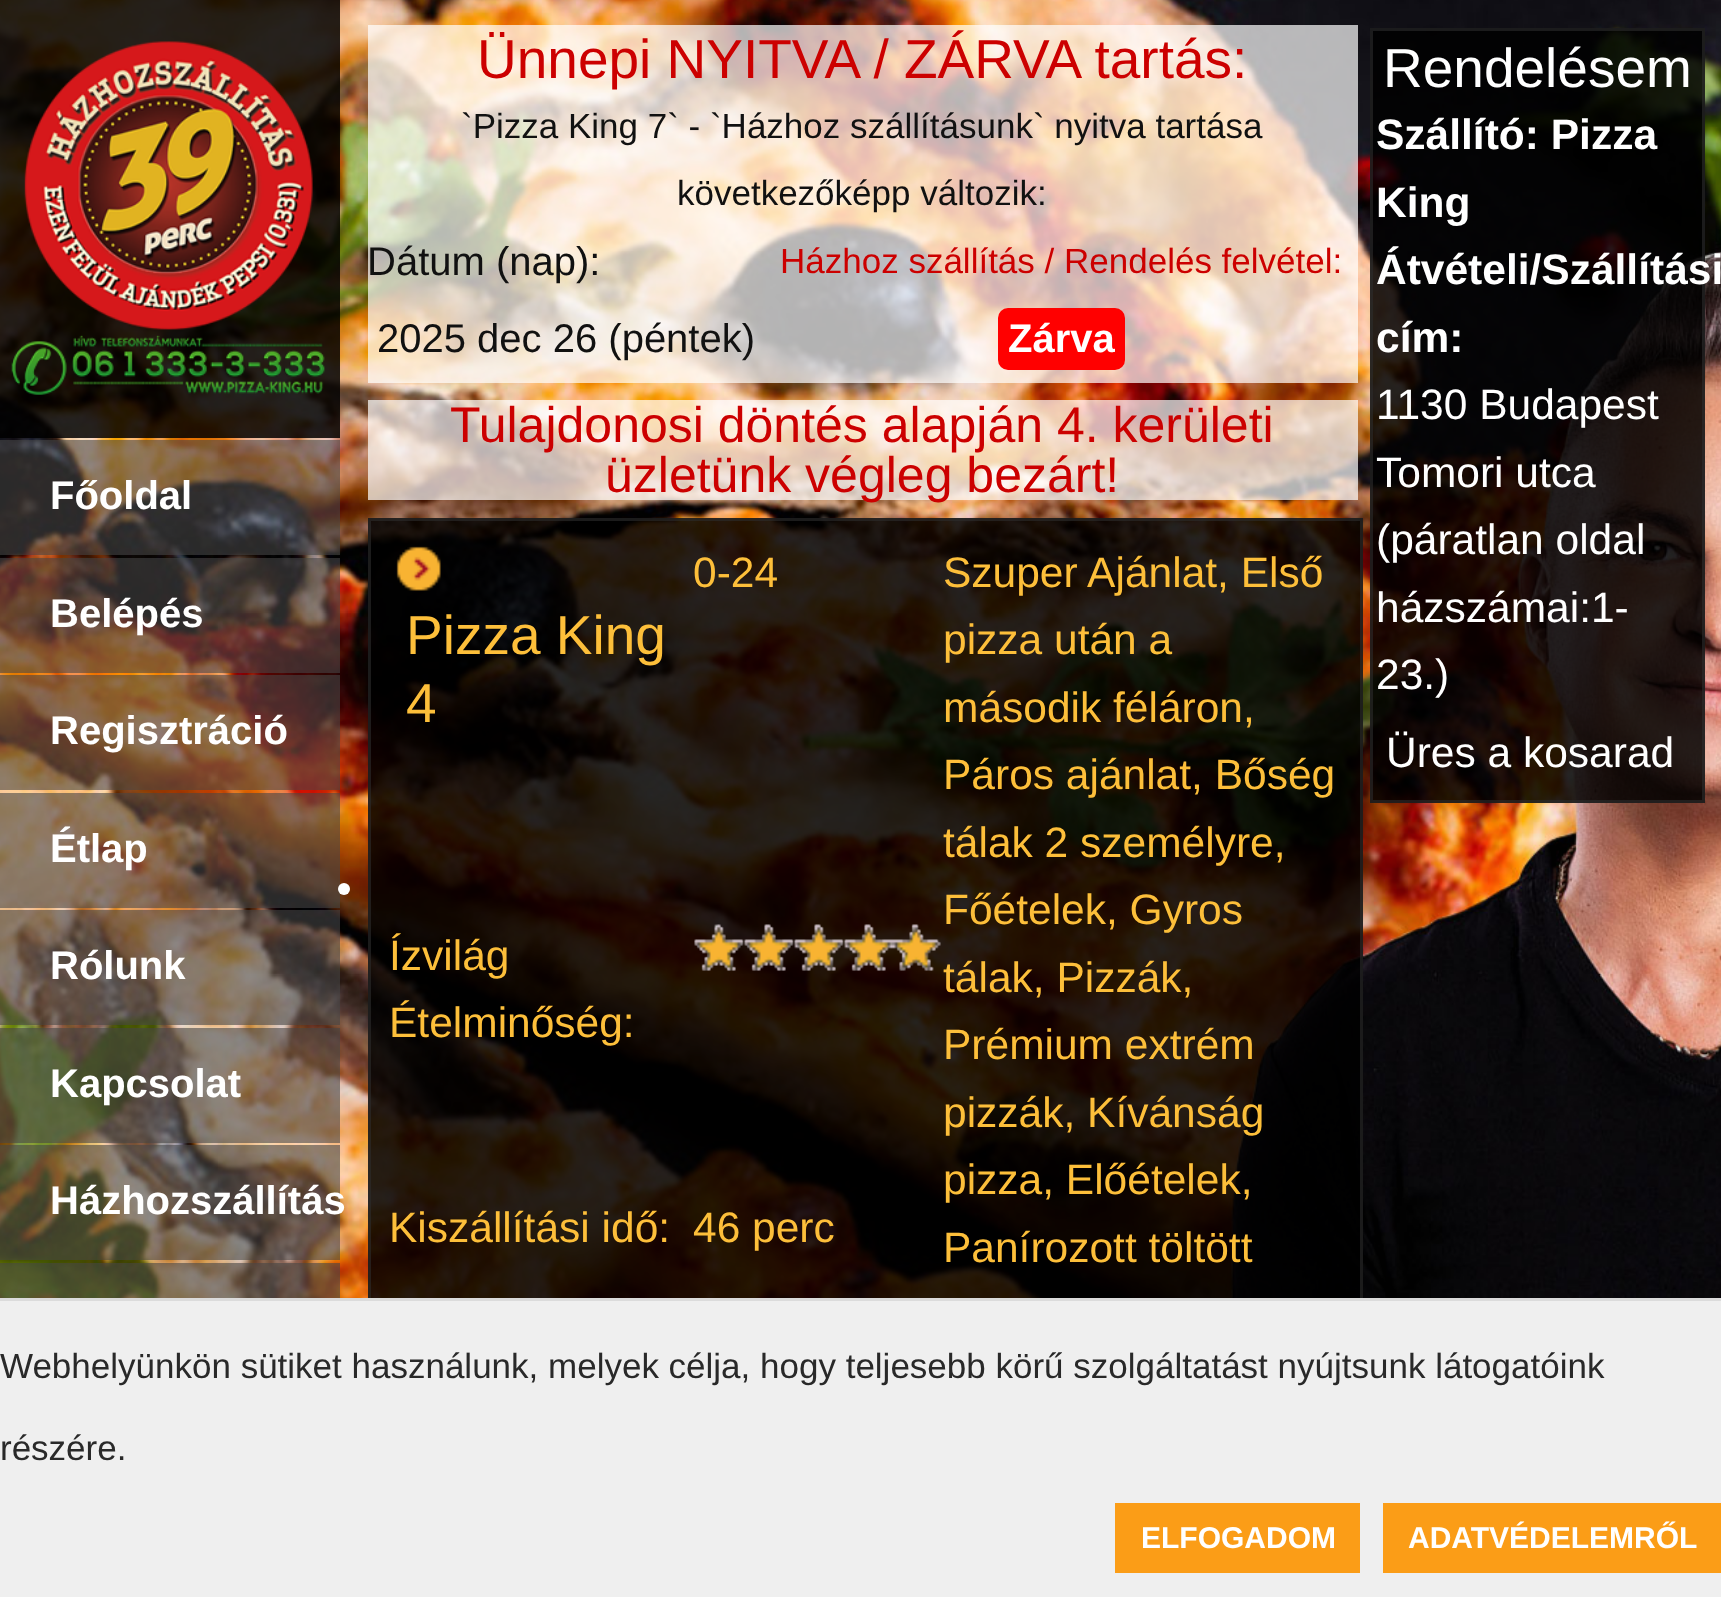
(async () => {
  const canvas = document.querySelector("canvas");
  canvas.width = 1721;
  canvas.height = 1597;
  const ctx = canvas.getContext("2d");
  ctx.miterLimit = 4;
  ctx.fontKerning = "normal";
  async function loadImage(src) {
    const img = new Image();
    img.src = src;
    await img.decode();
    return img;
  }

  ctx.fillStyle = "#ffffff";
  ctx.fillRect(0, 0, 1721, 1597);
  ctx.drawImage(await loadImage("img/1.png"), 0, 0, 1721, 1298);
  ctx.fillStyle = "rgba(0, 0, 0, 0.85)";
  ctx.fillRect(0, 0, 340, 438);
  ctx.drawImage(await loadImage("img/2.png"), 11, 41, 314, 354);
  for (const [x, y, w, h, color] of [
    [0, 440, 340, 115, "rgba(70, 70, 70, 0.6)"],
    [0, 558, 340, 115, "rgba(70, 70, 70, 0.6)"],
    [0, 675, 340, 115, "rgba(70, 70, 70, 0.6)"],
    [0, 793, 340, 115, "rgba(70, 70, 70, 0.6)"],
    [0, 910, 340, 115, "rgba(70, 70, 70, 0.6)"],
    [0, 1028, 340, 115, "rgba(70, 70, 70, 0.6)"],
    [0, 1145, 340, 115, "rgba(70, 70, 70, 0.6)"],
    [0, 1263, 340, 35, "rgba(70, 70, 70, 0.6)"],
    [368, 25, 990, 358, "rgba(255, 255, 255, 0.7)"],
  ]) {
    ctx.fillStyle = color;
    ctx.fillRect(x, y, w, h);
  }
  ctx.fillStyle = "#ff0000";
  ctx.beginPath();
  ctx.roundRect(998, 308, 127, 62, 10);
  ctx.fill();
  ctx.fillStyle = "rgba(255, 255, 255, 0.7)";
  ctx.fillRect(368, 400, 990, 100);
  ctx.fillStyle = "rgba(0, 0, 0, 0.85)";
  ctx.fillRect(368, 518, 995, 780);
  ctx.strokeStyle = "rgba(45, 45, 45, 0.6)";
  ctx.lineWidth = 3;
  ctx.strokeRect(369.5, 519.5, 992, 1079);
  ctx.fillStyle = "#ffffff";
  ctx.beginPath();
  ctx.arc(344, 889, 6, 0, Math.PI * 2);
  ctx.fill();
  ctx.drawImage(await loadImage("img/3.png"), 396, 546, 45, 45);
  ctx.drawImage(await loadImage("img/4.png"), 694, 924, 247, 47);
  ctx.drawImage(await loadImage("img/5.png"), 694, 924, 247, 47);
  ctx.fillStyle = "rgba(0, 0, 0, 0.85)";
  ctx.fillRect(1370, 28, 335, 775);
  ctx.strokeRect(1371.5, 29.5, 332, 772);
  for (const [x, y, w, h, color] of [
    [0, 1301, 1721, 296, "#efefef"],
    [0, 1298, 1721, 3, "#dbdbdb"],
    [1115, 1503, 245, 70, "#fb9d17"],
    [1383, 1503, 338, 70, "#fb9d17"],
  ]) {
    ctx.fillStyle = color;
    ctx.fillRect(x, y, w, h);
  }
  ctx.font = "bold 40px Liberation Sans";
  ctx.fillStyle = "#ffffff";
  for (const [text, x, y] of [
    ["Főoldal", 50, 509],
    ["Belépés", 50, 627],
    ["Regisztráció", 50, 744],
    ["Étlap", 50, 862],
    ["Rólunk", 50, 979],
    ["Kapcsolat", 50, 1097],
    ["Házhozszállítás", 50, 1214],
  ]) {
    ctx.fillText(text, x, y);
  }
  ctx.font = "55px Liberation Sans";
  ctx.fillStyle = "#cc0000";
  ctx.fillText("Ünnepi NYITVA / ZÁRVA tartás:", 477, 78);
  ctx.font = "35px Liberation Sans";
  ctx.fillStyle = "#111111";
  ctx.fillText("`Pizza King 7` - `Házhoz szállításunk` nyitva tartása", 461, 138);
  ctx.fillText("következőképp változik:", 677, 205);
  ctx.font = "40px Liberation Sans";
  ctx.fillText("Dátum (nap):", 367, 275);
  ctx.font = "35px Liberation Sans";
  ctx.fillStyle = "#cc0000";
  ctx.fillText("Házhoz szállítás / Rendelés felvétel:", 780, 273);
  ctx.font = "40px Liberation Sans";
  ctx.fillStyle = "#111111";
  ctx.fillText("2025 dec 26 (péntek)", 377, 352);
  ctx.font = "bold 40px Liberation Sans";
  ctx.fillStyle = "#ffffff";
  ctx.fillText("Zárva", 1008, 352);
  ctx.font = "50px Liberation Sans";
  ctx.fillStyle = "#cc0000";
  ctx.fillText("Tulajdonosi döntés alapján 4. kerületi", 450, 442);
  ctx.fillText("üzletünk végleg bezárt!", 605, 492);
  ctx.font = "42.5px Liberation Sans";
  ctx.fillStyle = "#fdbf3a";
  for (const [text, x, y] of [
    ["0-24", 693, 587],
    ["Szuper Ajánlat, Első", 943, 587],
    ["pizza után a", 943, 654],
    ["második féláron,", 943, 722],
    ["Páros ajánlat, Bőség", 943, 789],
    ["tálak 2 személyre,", 943, 857],
    ["Főételek, Gyros", 943, 924],
    ["tálak, Pizzák,", 943, 992],
    ["Prémium extrém", 943, 1059],
    ["pizzák, Kívánság", 943, 1127],
    ["pizza, Előételek,", 943, 1194],
    ["Panírozott töltött", 943, 1262],
  ]) {
    ctx.fillText(text, x, y);
  }
  ctx.font = "55px Liberation Sans";
  ctx.fillText("Pizza King", 406, 654);
  ctx.fillText("4", 406, 722);
  ctx.font = "42.5px Liberation Sans";
  for (const [text, x, y] of [
    ["Ízvilág", 389, 970],
    ["Ételminőség:", 389, 1037],
    ["Kiszállítási idő:", 389, 1242],
    ["46 perc", 693, 1242],
  ]) {
    ctx.fillText(text, x, y);
  }
  ctx.font = "55px Liberation Sans";
  ctx.fillStyle = "#ffffff";
  ctx.fillText("Rendelésem", 1383, 87);
  ctx.font = "bold 42.5px Liberation Sans";
  for (const [text, x, y] of [
    ["Szállító: Pizza", 1376, 149],
    ["King", 1376, 217],
    ["Átvételi/Szállítási", 1376, 284],
    ["cím:", 1376, 352],
  ]) {
    ctx.fillText(text, x, y);
  }
  ctx.font = "42.5px Liberation Sans";
  for (const [text, x, y] of [
    ["1130 Budapest", 1376, 419],
    ["Tomori utca", 1376, 487],
    ["(páratlan oldal", 1376, 554],
    ["házszámai:1-", 1376, 622],
    ["23.)", 1376, 689],
    ["Üres a kosarad", 1386, 767],
  ]) {
    ctx.fillText(text, x, y);
  }
  ctx.font = "35px Liberation Sans";
  ctx.fillStyle = "#292929";
  ctx.fillText("Webhelyünkön sütiket használunk, melyek célja, hogy teljesebb körű szolgáltatást nyújtsunk látogatóink", 0, 1378);
  ctx.fillText("részére.", 0, 1460);
  ctx.font = "bold 30px Liberation Sans";
  ctx.fillStyle = "#ffffff";
  ctx.fillText("ELFOGADOM", 1141, 1548);
  ctx.fillText("ADATVÉDELEMRŐL", 1408, 1548);
})();
